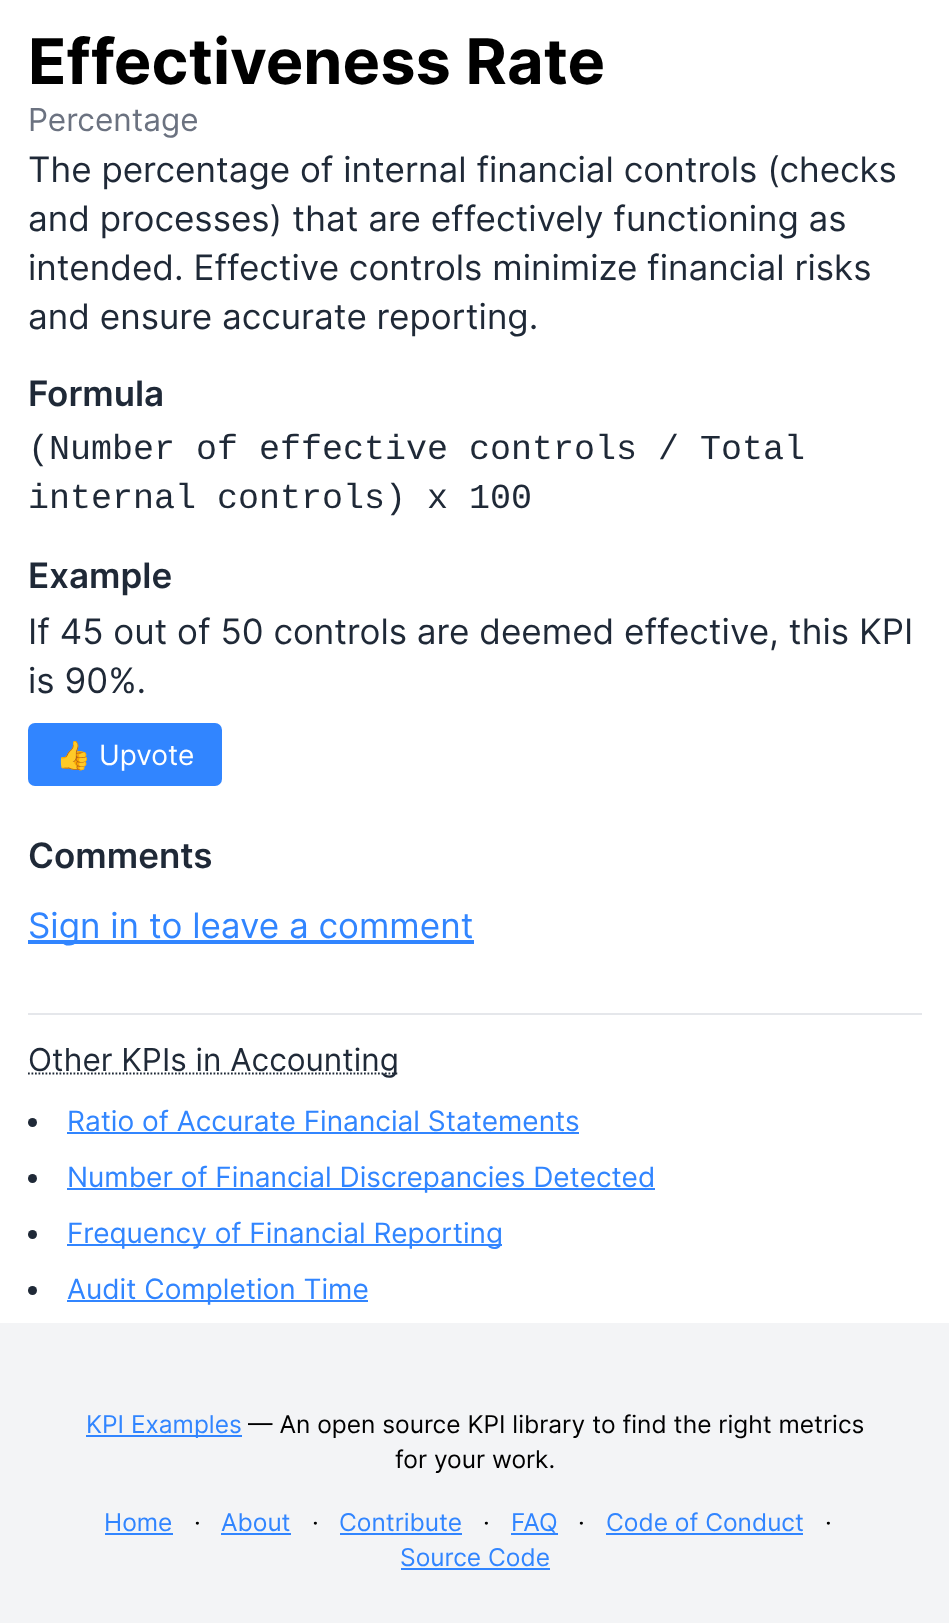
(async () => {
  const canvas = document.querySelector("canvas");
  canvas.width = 949;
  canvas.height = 1623;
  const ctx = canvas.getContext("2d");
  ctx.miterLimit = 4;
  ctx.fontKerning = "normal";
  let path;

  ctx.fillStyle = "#ffffff";
  ctx.fillRect(0, 0, 949, 1623);
  ctx.fillStyle = "#3185ff";
  ctx.beginPath();
  ctx.roundRect(28, 723, 194, 63, 7);
  ctx.fill();
  ctx.fillRect(28, 940, 446, 4);
  ctx.fillStyle = "#e5e7eb";
  ctx.fillRect(28, 1013, 894, 2);
  path = new Path2D("M28 1073.5H399");
  ctx.strokeStyle = "#1f2937";
  ctx.lineWidth = 1.8;
  ctx.setLineDash([1.75, 1.75]);
  ctx.stroke(path);
  ctx.fillStyle = "#1f2937";
  ctx.beginPath();
  ctx.arc(32.5, 1122.5, 4.5, 0, Math.PI * 2);
  ctx.fill();
  ctx.fillStyle = "#3185ff";
  ctx.fillRect(67, 1132, 512, 2);
  ctx.fillStyle = "#1f2937";
  ctx.beginPath();
  ctx.arc(32.5, 1178.5, 4.5, 0, Math.PI * 2);
  ctx.fill();
  ctx.fillStyle = "#3185ff";
  ctx.fillRect(67, 1188, 588, 2);
  ctx.fillStyle = "#1f2937";
  ctx.beginPath();
  ctx.arc(32.5, 1234.5, 4.5, 0, Math.PI * 2);
  ctx.fill();
  ctx.fillStyle = "#3185ff";
  ctx.fillRect(67, 1244, 435, 2);
  ctx.fillStyle = "#1f2937";
  ctx.beginPath();
  ctx.arc(32.5, 1290.5, 4.5, 0, Math.PI * 2);
  ctx.fill();
  for (const [x, y, w, h, color] of [
    [67, 1300, 301, 2, "#3185ff"],
    [0, 1323, 949, 300, "#f3f4f6"],
    [86, 1435, 156, 2, "#3185ff"],
    [105, 1533, 68, 2, "#3185ff"],
    [221, 1533, 70, 2, "#3185ff"],
    [340, 1533, 122, 2, "#3185ff"],
    [511, 1533, 47, 2, "#3185ff"],
    [606, 1533, 197, 2, "#3185ff"],
    [401, 1568, 149, 2, "#3185ff"],
  ]) {
    ctx.fillStyle = color;
    ctx.fillRect(x, y, w, h);
  }
  ctx.font = "bold 63px Inter";
  ctx.fillStyle = "#000000";
  ctx.fillText("Effectiveness Rate", 28, 84);
  ctx.font = "31.5px Inter";
  ctx.fillStyle = "#6b7280";
  ctx.fillText("Percentage", 28, 131);
  ctx.font = "35px Inter";
  ctx.fillStyle = "#1f2937";
  for (const [text, x, y] of [
    ["The percentage of internal financial controls (checks", 28, 182],
    ["and processes) that are effectively functioning as", 28, 231],
    ["intended. Effective controls minimize financial risks", 28, 280],
    ["and ensure accurate reporting.", 28, 329],
  ]) {
    ctx.fillText(text, x, y);
  }
  ctx.font = "600 35px Inter";
  ctx.fillText("Formula", 28, 406);
  ctx.font = "35px Liberation Mono";
  ctx.fillText("(Number of effective controls / Total", 28, 459);
  ctx.fillText("internal controls) x 100", 28, 508);
  ctx.font = "600 35px Inter";
  ctx.fillText("Example", 28, 588);
  ctx.font = "35px Inter";
  ctx.fillText("If 45 out of 50 controls are deemed effective, this KPI", 28, 644);
  ctx.fillText("is 90%.", 28, 693);
  ctx.font = "28px Noto Color Emoji";
  ctx.fillStyle = "#ffffff";
  ctx.fillText("👍", 56, 765);
  ctx.font = "28px Inter";
  ctx.fillText("Upvote", 99, 765);
  ctx.font = "600 35px Inter";
  ctx.fillStyle = "#1f2937";
  ctx.fillText("Comments", 28, 868);
  ctx.font = "35px Inter";
  ctx.fillStyle = "#3185ff";
  ctx.fillText("Sign in to leave a comment", 28, 938);
  ctx.font = "31.5px Inter";
  ctx.fillStyle = "#1f2937";
  ctx.fillText("Other KPIs in Accounting", 28, 1071);
  ctx.font = "28px Inter";
  ctx.fillStyle = "#3185ff";
  for (const [text, x, y] of [
    ["Ratio of Accurate Financial Statements", 67, 1131],
    ["Number of Financial Discrepancies Detected", 67, 1187],
    ["Frequency of Financial Reporting", 67, 1243],
    ["Audit Completion Time", 67, 1299],
  ]) {
    ctx.fillText(text, x, y);
  }
  ctx.font = "24.5px Inter";
  ctx.fillText("KPI Examples", 86, 1433);
  ctx.fillStyle = "#000000";
  ctx.fillText("— An open source KPI library to find the right metrics", 248, 1433);
  ctx.fillText("for your work.", 395, 1468);
  ctx.fillStyle = "#3185ff";
  ctx.fillText("Home", 104, 1531);
  ctx.fillStyle = "#000000";
  ctx.fillText("·", 194, 1531);
  ctx.fillStyle = "#3185ff";
  ctx.fillText("About", 221, 1531);
  ctx.fillStyle = "#000000";
  ctx.fillText("·", 312, 1531);
  ctx.fillStyle = "#3185ff";
  ctx.fillText("Contribute", 339, 1531);
  ctx.fillStyle = "#000000";
  ctx.fillText("·", 483, 1531);
  ctx.fillStyle = "#3185ff";
  ctx.fillText("FAQ", 511, 1531);
  ctx.fillStyle = "#000000";
  ctx.fillText("·", 578, 1531);
  ctx.fillStyle = "#3185ff";
  ctx.fillText("Code of Conduct", 606, 1531);
  ctx.fillStyle = "#000000";
  ctx.fillText("·", 825, 1531);
  ctx.fillStyle = "#3185ff";
  ctx.fillText("Source Code", 400, 1566);
})();
